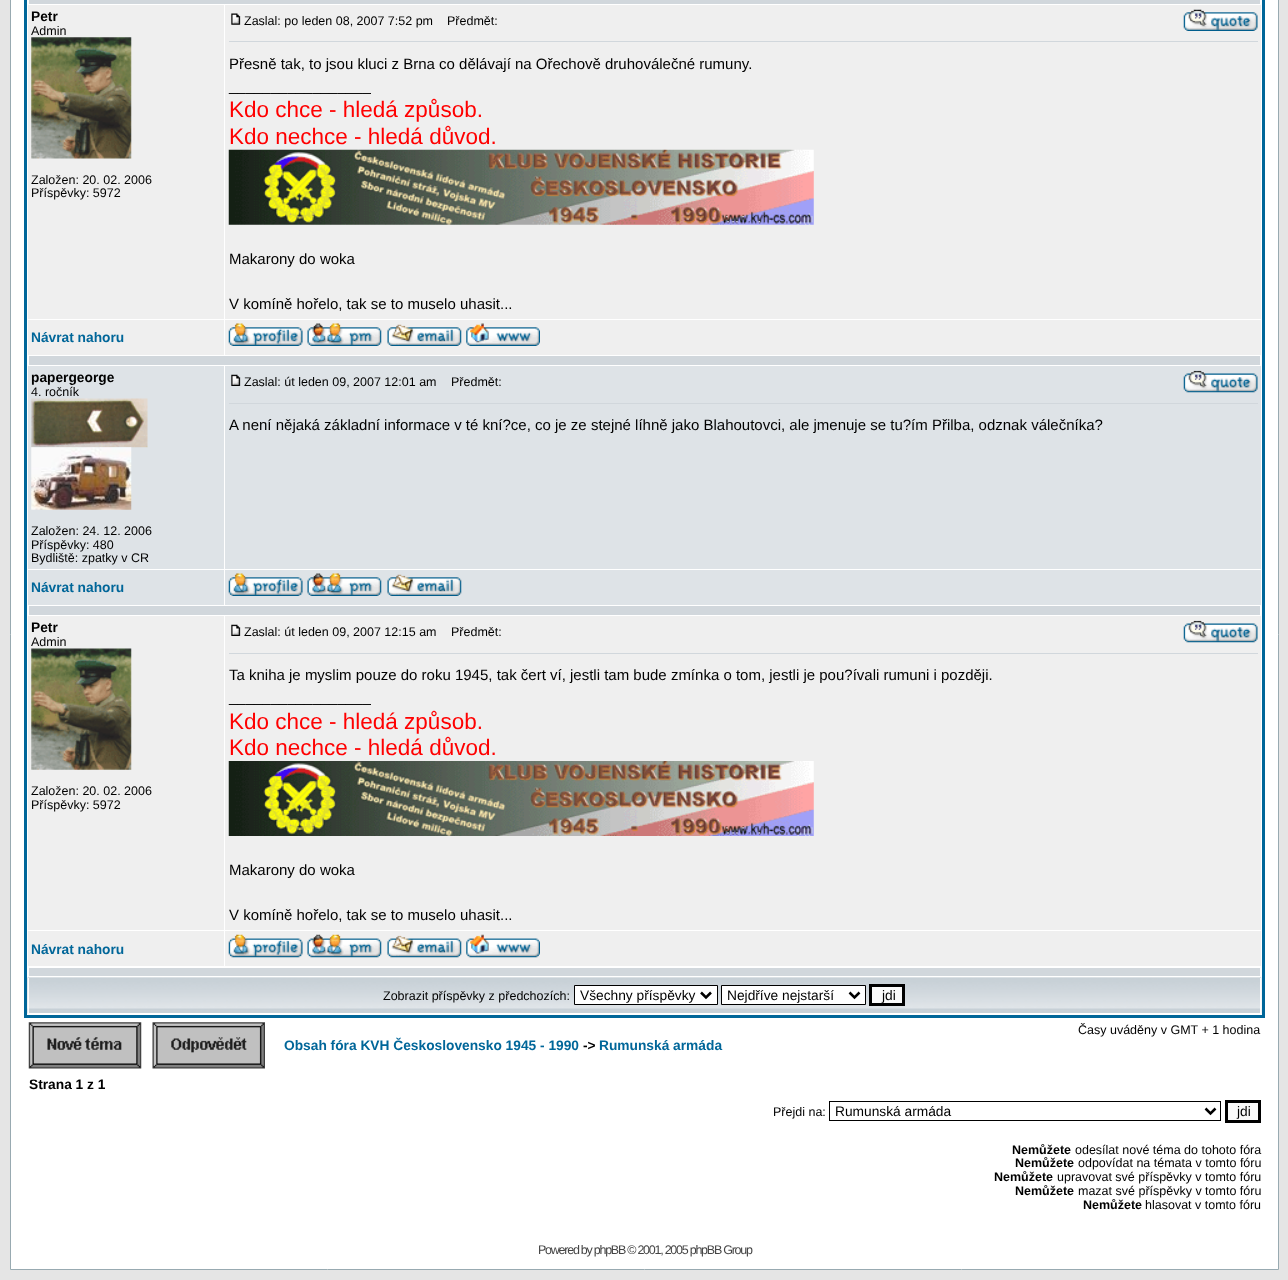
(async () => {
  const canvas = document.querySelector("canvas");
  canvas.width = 1288;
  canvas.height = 1280;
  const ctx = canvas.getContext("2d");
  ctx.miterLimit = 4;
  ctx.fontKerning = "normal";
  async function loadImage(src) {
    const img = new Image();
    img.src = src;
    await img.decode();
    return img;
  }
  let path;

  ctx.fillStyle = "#e5e5e5";
  ctx.fillRect(0, 0, 1288, 1280);
  ctx.fillStyle = "#ffffff";
  ctx.beginPath();
  ctx.rect(10.5, -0.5, 1268, 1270);
  ctx.fill();
  ctx.strokeStyle = "#98aab1";
  ctx.stroke();
  ctx.strokeStyle = "#006699";
  ctx.lineWidth = 3;
  ctx.strokeRect(25.5, -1.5, 1238, 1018);
  ctx.fillStyle = "#d1d7dc";
  ctx.fillRect(29, 0, 1231, 4);
  ctx.fillStyle = "#efefef";
  ctx.fillRect(28, 5, 196, 314);
  ctx.drawImage(await loadImage("img/1.png"), 31, 37, 101, 122);
  ctx.fillRect(225, 5, 1036, 314);
  ctx.drawImage(await loadImage("img/2.png"), 231, 13, 10, 12);
  ctx.drawImage(await loadImage("img/3.png"), 1183, 9, 75, 22);
  ctx.fillStyle = "#d1d7dc";
  ctx.fillRect(229, 41, 1029, 1);
  ctx.drawImage(await loadImage("img/4.png"), 228, 149, 586, 76);
  ctx.fillStyle = "#efefef";
  ctx.fillRect(28, 320, 196, 35);
  ctx.fillRect(225, 320, 1036, 35);
  ctx.drawImage(await loadImage("img/5.png"), 228, 323, 75, 23);
  ctx.drawImage(await loadImage("img/6.png"), 307, 323, 75, 23);
  ctx.drawImage(await loadImage("img/7.png"), 387, 324, 75, 22);
  ctx.drawImage(await loadImage("img/8.png"), 466, 323, 74, 23);
  ctx.fillStyle = "#d1d7dc";
  ctx.fillRect(29, 356, 1231, 9);
  ctx.fillStyle = "#dee3e7";
  ctx.fillRect(28, 366, 196, 203);
  ctx.drawImage(await loadImage("img/9.png"), 31, 398, 117, 50);
  ctx.drawImage(await loadImage("img/10.png"), 31, 447, 101, 63);
  ctx.fillRect(225, 366, 1036, 203);
  ctx.drawImage(await loadImage("img/11.png"), 231, 374, 10, 12);
  ctx.drawImage(await loadImage("img/12.png"), 1183, 370, 75, 23);
  for (const [x, y, w, h, color] of [
    [229, 403, 1029, 1, "#d1d7dc"],
    [28, 570, 196, 35, "#dee3e7"],
    [225, 570, 1036, 35, "#dee3e7"],
  ]) {
    ctx.fillStyle = color;
    ctx.fillRect(x, y, w, h);
  }
  ctx.drawImage(await loadImage("img/13.png"), 228, 573, 75, 23);
  ctx.drawImage(await loadImage("img/14.png"), 307, 573, 75, 23);
  ctx.drawImage(await loadImage("img/15.png"), 387, 574, 75, 22);
  ctx.fillStyle = "#d1d7dc";
  ctx.fillRect(29, 606, 1231, 9);
  ctx.fillStyle = "#efefef";
  ctx.fillRect(28, 616, 196, 314);
  ctx.drawImage(await loadImage("img/16.png"), 31, 648, 101, 122);
  ctx.fillRect(225, 616, 1036, 314);
  ctx.drawImage(await loadImage("img/17.png"), 231, 624, 10, 12);
  ctx.drawImage(await loadImage("img/18.png"), 1183, 620, 75, 23);
  ctx.fillStyle = "#d1d7dc";
  ctx.fillRect(229, 653, 1029, 1);
  ctx.drawImage(await loadImage("img/19.png"), 228, 761, 586, 75);
  ctx.fillStyle = "#efefef";
  ctx.fillRect(28, 931, 196, 35);
  ctx.fillRect(225, 931, 1036, 35);
  ctx.drawImage(await loadImage("img/20.png"), 228, 934, 75, 24);
  ctx.drawImage(await loadImage("img/21.png"), 307, 934, 75, 24);
  ctx.drawImage(await loadImage("img/22.png"), 387, 935, 75, 23);
  ctx.drawImage(await loadImage("img/23.png"), 466, 934, 74, 24);
  ctx.fillStyle = "#d1d7dc";
  ctx.fillRect(29, 968, 1231, 8);
  ctx.drawImage(await loadImage("img/24.png"), 27, 977, 1235, 37);
  for (const [x, y, w, h, color] of [
    [1260, 978, 1, 36, "#ffffff"],
    [28, 1013, 1233, 1, "#ffffff"],
    [28, 978, 1, 36, "#ffffff"],
  ]) {
    ctx.fillStyle = color;
    ctx.fillRect(x, y, w, h);
  }
  ctx.beginPath();
  ctx.rect(574.5, 985.5, 143, 19);
  ctx.fill();
  ctx.strokeStyle = "#000000";
  ctx.lineWidth = 1;
  ctx.stroke();
  path = new Path2D("M701 992.5L706 997.5L711 992.5");
  ctx.lineWidth = 2.5;
  ctx.stroke(path);
  ctx.beginPath();
  ctx.rect(721.5, 985.5, 144, 19);
  ctx.fill();
  ctx.lineWidth = 1;
  ctx.stroke();
  path = new Path2D("M849.5 992.5L854.5 997.5L859.5 992.5");
  ctx.lineWidth = 2.5;
  ctx.stroke(path);
  ctx.fillStyle = "#fafafa";
  ctx.beginPath();
  ctx.rect(870.5, 985.5, 33, 19);
  ctx.fill();
  ctx.lineWidth = 3;
  ctx.stroke();
  ctx.drawImage(await loadImage("img/25.png"), 28, 1022, 114, 47);
  ctx.drawImage(await loadImage("img/26.png"), 152, 1022, 113, 47);
  ctx.lineWidth = 1;
  ctx.strokeRect(829.5, 1101.5, 391, 19);
  path = new Path2D("M1205.5 1108.5L1210.5 1113.5L1215.5 1108.5");
  ctx.lineWidth = 2.5;
  ctx.stroke(path);
  ctx.beginPath();
  ctx.rect(1226.5, 1101.5, 33, 20);
  ctx.fill();
  ctx.lineWidth = 3;
  ctx.stroke();
  ctx.font = "bold 13.75px Liberation Sans";
  ctx.fillStyle = "#000000";
  ctx.fillText("Petr", 31, 21);
  ctx.font = "12.5px Liberation Sans";
  for (const [text, x, y] of [
    ["Admin", 31, 35],
    ["Založen: 20. 02. 2006", 31, 184],
    ["Příspěvky: 5972", 31, 197],
    ["Zaslal: po leden 08, 2007 7:52 pm", 244, 25],
    ["Předmět:", 447, 25],
  ]) {
    ctx.fillText(text, x, y);
  }
  ctx.font = "15px Liberation Sans";
  ctx.fillText("Přesně tak, to jsou kluci z Brna co dělávají na Ořechově druhoválečné rumuny.", 229, 69);
  ctx.fillText("_________________", 229, 91);
  ctx.font = "22.5px Liberation Sans";
  ctx.fillStyle = "#ff0000";
  ctx.fillText("Kdo chce - hledá způsob.", 229, 117);
  ctx.fillText("Kdo nechce - hledá důvod.", 229, 144);
  ctx.font = "15px Liberation Sans";
  ctx.fillStyle = "#000000";
  ctx.fillText("Makarony do woka", 229, 264);
  ctx.fillText("V komíně hořelo, tak se to muselo uhasit...", 229, 309);
  ctx.font = "bold 13.75px Liberation Sans";
  ctx.fillStyle = "#006699";
  ctx.fillText("Návrat nahoru", 31, 342);
  ctx.fillStyle = "#000000";
  ctx.fillText("papergeorge", 31, 382);
  ctx.font = "12.5px Liberation Sans";
  for (const [text, x, y] of [
    ["4. ročník", 31, 396],
    ["Založen: 24. 12. 2006", 31, 535],
    ["Příspěvky: 480", 31, 549],
    ["Bydliště: zpatky v CR", 31, 562],
    ["Zaslal: út leden 09, 2007 12:01 am", 244, 386],
    ["Předmět:", 451, 386],
  ]) {
    ctx.fillText(text, x, y);
  }
  ctx.font = "15px Liberation Sans";
  ctx.fillText("A není nějaká základní informace v té kní?ce, co je ze stejné líhně jako Blahoutovci, ale jmenuje se tu?ím Přilba, odznak válečníka?", 229, 430);
  ctx.font = "bold 13.75px Liberation Sans";
  ctx.fillStyle = "#006699";
  ctx.fillText("Návrat nahoru", 31, 592);
  ctx.fillStyle = "#000000";
  ctx.fillText("Petr", 31, 632);
  ctx.font = "12.5px Liberation Sans";
  for (const [text, x, y] of [
    ["Admin", 31, 646],
    ["Založen: 20. 02. 2006", 31, 795],
    ["Příspěvky: 5972", 31, 809],
    ["Zaslal: út leden 09, 2007 12:15 am", 244, 636],
    ["Předmět:", 451, 636],
  ]) {
    ctx.fillText(text, x, y);
  }
  ctx.font = "15px Liberation Sans";
  ctx.fillText("Ta kniha je myslim pouze do roku 1945, tak čert ví, jestli tam bude zmínka o tom, jestli je pou?ívali rumuni i později.", 229, 680);
  ctx.fillText("_________________", 229, 702);
  ctx.font = "22.5px Liberation Sans";
  ctx.fillStyle = "#ff0000";
  ctx.fillText("Kdo chce - hledá způsob.", 229, 729);
  ctx.fillText("Kdo nechce - hledá důvod.", 229, 755);
  ctx.font = "15px Liberation Sans";
  ctx.fillStyle = "#000000";
  ctx.fillText("Makarony do woka", 229, 875);
  ctx.fillText("V komíně hořelo, tak se to muselo uhasit...", 229, 920);
  ctx.font = "bold 13.75px Liberation Sans";
  ctx.fillStyle = "#006699";
  ctx.fillText("Návrat nahoru", 31, 954);
  ctx.font = "12.5px Liberation Sans";
  ctx.fillStyle = "#000000";
  ctx.fillText("Zobrazit příspěvky z předchozích:", 383, 1000);
  ctx.font = "13.75px Liberation Sans";
  for (const [text, x, y] of [
    ["Všechny příspěvky", 580, 1000],
    ["Nejdříve nejstarší", 727, 1000],
    ["jdi", 882, 1000],
  ]) {
    ctx.fillText(text, x, y);
  }
  ctx.font = "12.5px Liberation Sans";
  ctx.fillText("Časy uváděny v GMT + 1 hodina", 1078, 1034);
  ctx.font = "bold 13.75px Liberation Sans";
  ctx.fillStyle = "#006699";
  ctx.fillText("Obsah fóra KVH Československo 1945 - 1990", 284, 1050);
  ctx.fillStyle = "#000000";
  ctx.fillText("->", 583, 1050);
  ctx.fillStyle = "#006699";
  ctx.fillText("Rumunská armáda", 599, 1050);
  ctx.fillStyle = "#000000";
  ctx.fillText("Strana 1 z 1", 29, 1089);
  ctx.font = "12.5px Liberation Sans";
  ctx.fillText("Přejdi na:", 773, 1116);
  ctx.font = "13.75px Liberation Sans";
  ctx.fillText("Rumunská armáda", 835, 1116);
  ctx.fillText("jdi", 1237, 1116);
  ctx.font = "bold 12.5px Liberation Sans";
  ctx.fillText("Nemůžete", 1012, 1154);
  ctx.font = "12.5px Liberation Sans";
  ctx.fillText("odesílat nové téma do tohoto fóra", 1075, 1154);
  ctx.font = "bold 12.5px Liberation Sans";
  ctx.fillText("Nemůžete", 1015, 1167);
  ctx.font = "12.5px Liberation Sans";
  ctx.fillText("odpovídat na témata v tomto fóru", 1078, 1167);
  ctx.font = "bold 12.5px Liberation Sans";
  ctx.fillText("Nemůžete", 994, 1181);
  ctx.font = "12.5px Liberation Sans";
  ctx.fillText("upravovat své příspěvky v tomto fóru", 1057, 1181);
  ctx.font = "bold 12.5px Liberation Sans";
  ctx.fillText("Nemůžete", 1015, 1195);
  ctx.font = "12.5px Liberation Sans";
  ctx.fillText("mazat své příspěvky v tomto fóru", 1078, 1195);
  ctx.font = "bold 12.5px Liberation Sans";
  ctx.fillText("Nemůžete", 1083, 1209);
  ctx.font = "12.5px Liberation Sans";
  ctx.fillText("hlasovat v tomto fóru", 1145, 1209);
  ctx.letterSpacing = "-1.25px";
  ctx.fillStyle = "#444444";
  ctx.fillText("Powered by phpBB © 2001, 2005 phpBB Group", 538, 1254);
})();
